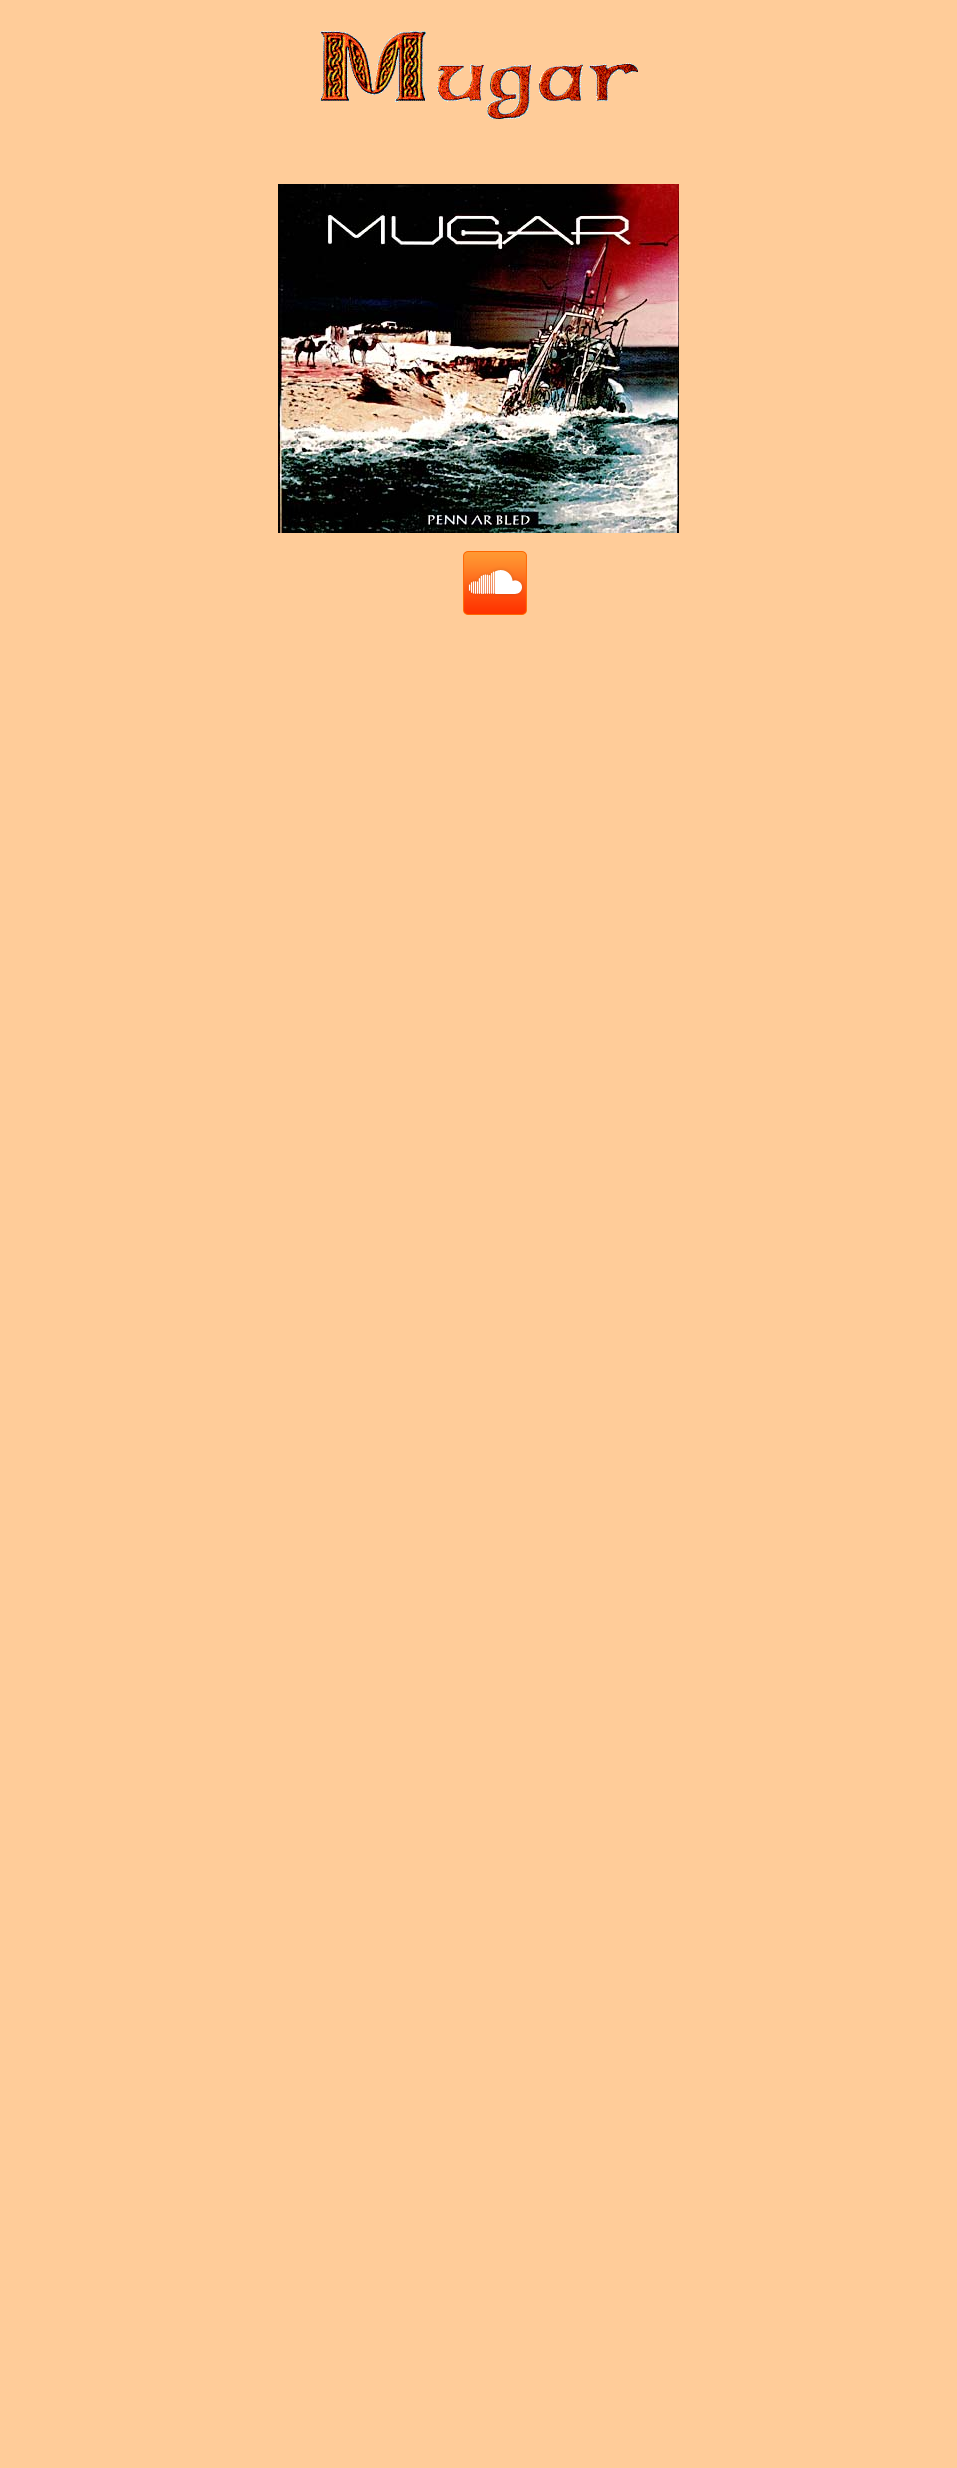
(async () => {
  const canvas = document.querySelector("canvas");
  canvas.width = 957;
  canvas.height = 2468;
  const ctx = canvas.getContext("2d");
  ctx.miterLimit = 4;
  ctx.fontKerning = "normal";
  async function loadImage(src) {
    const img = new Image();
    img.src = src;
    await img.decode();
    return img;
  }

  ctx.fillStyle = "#ffcc99";
  ctx.fillRect(0, 0, 957, 2468);
  ctx.drawImage(await loadImage("img/1.png"), 320, 31, 318, 88);
  ctx.drawImage(await loadImage("img/2.png"), 278, 184, 401, 349);
  ctx.drawImage(await loadImage("img/3.png"), 463, 551, 64, 64);
})();
